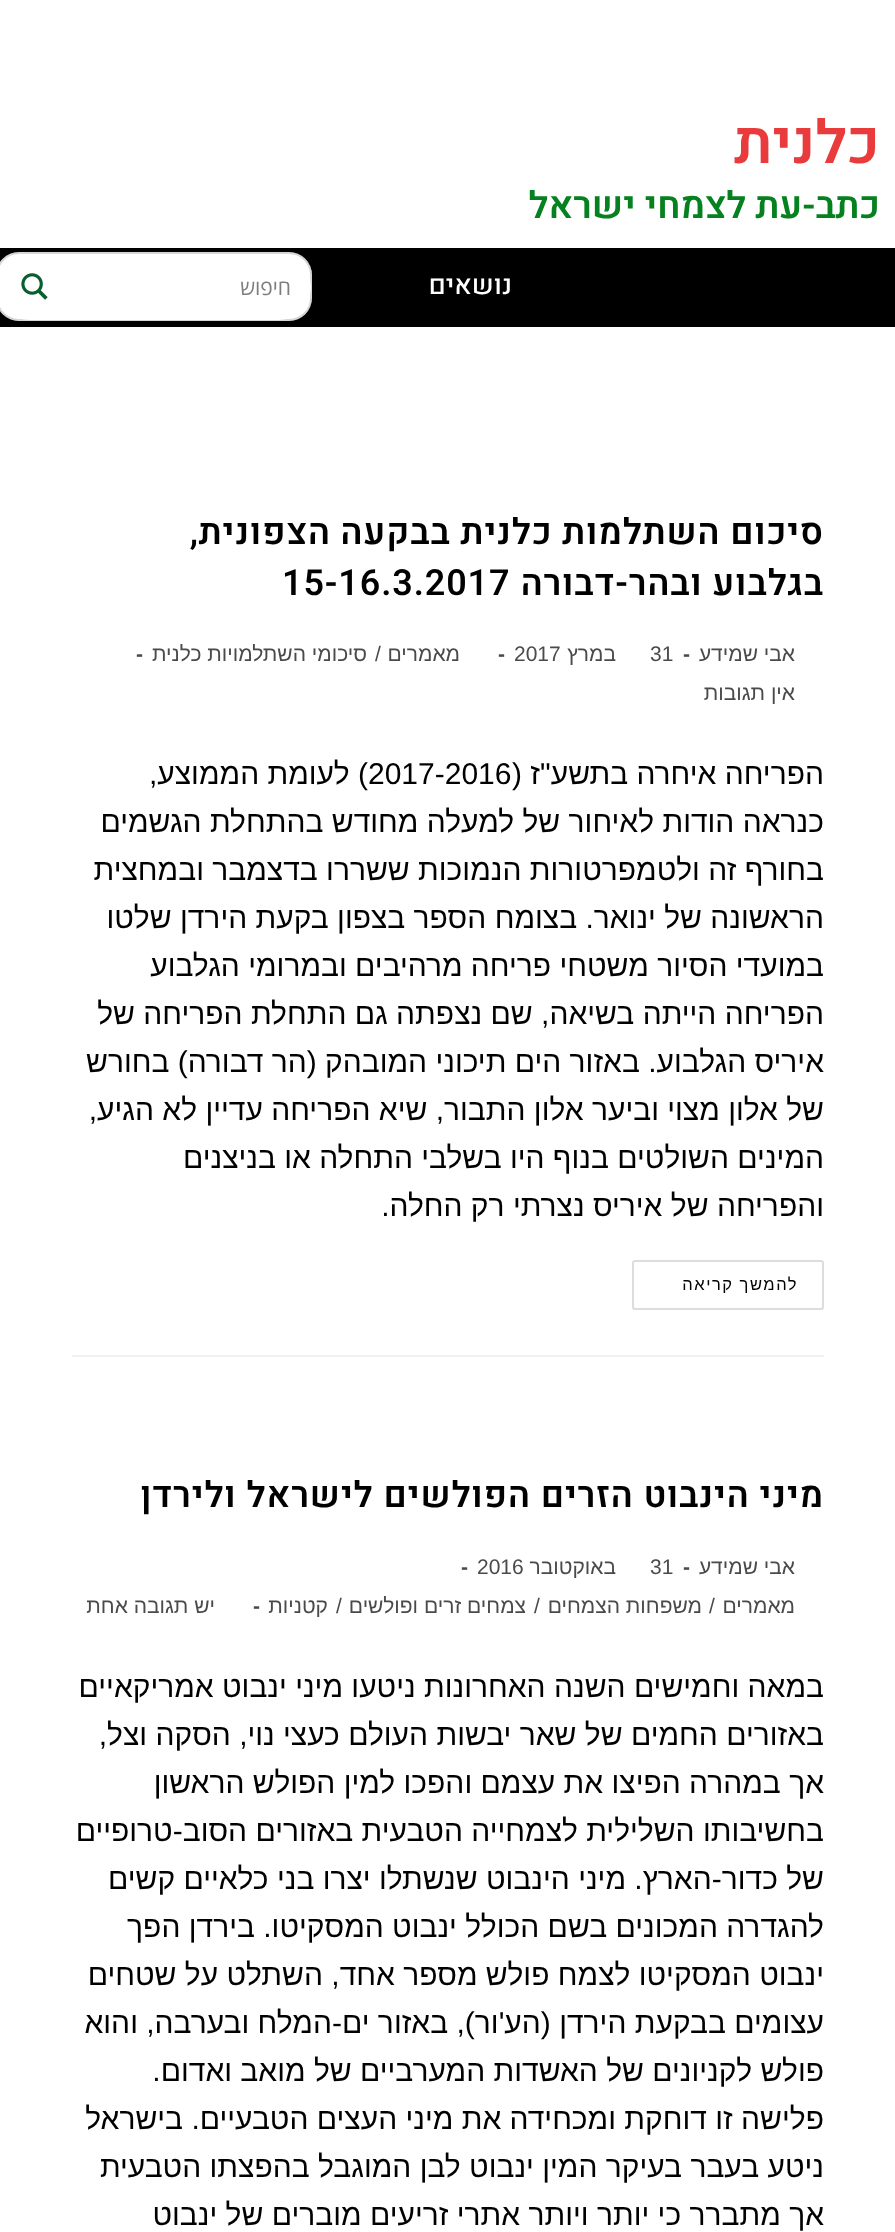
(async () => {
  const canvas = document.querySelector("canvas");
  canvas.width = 895;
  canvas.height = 2232;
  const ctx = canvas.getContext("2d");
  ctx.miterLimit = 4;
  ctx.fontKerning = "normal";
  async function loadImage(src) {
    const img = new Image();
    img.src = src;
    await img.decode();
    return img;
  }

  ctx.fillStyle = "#ffffff";
  ctx.fillRect(0, 0, 895, 2232);
  ctx.fillStyle = "#000000";
  ctx.fillRect(0, 248, 895, 79);
  ctx.fillStyle = "#ffffff";
  ctx.beginPath();
  ctx.roundRect(-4, 252, 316, 69, 23);
  ctx.fill();
  ctx.beginPath();
  ctx.roundRect(-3, 253, 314, 67, 22);
  ctx.strokeStyle = "rgba(122, 122, 122, 0.31)";
  ctx.lineWidth = 2;
  ctx.stroke();
  ctx.beginPath();
  ctx.roundRect(-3, 254, 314, 66, 33);
  ctx.fill();
  ctx.drawImage(await loadImage("img/1.png"), 21, 273, 27, 27);
  ctx.fillStyle = "#f1f1f1";
  ctx.fillRect(72, 1355, 752, 2);
  ctx.beginPath();
  ctx.roundRect(633, 1261, 190, 48, 2);
  ctx.strokeStyle = "#dddddd";
  ctx.stroke();
  ctx.direction = "rtl";
  ctx.font = "600 60px Heebo";
  ctx.fillStyle = "#e93a3c";
  ctx.fillText("כלנית", 880, 163);
  ctx.font = "600 37.5px Heebo";
  ctx.fillStyle = "#06811f";
  ctx.fillText("כתב-עת לצמחי ישראל", 880, 218);
  ctx.font = "500 27px Heebo";
  ctx.fillStyle = "#ffffff";
  ctx.fillText("נושאים", 512, 294);
  ctx.font = "21px Open Sans";
  ctx.fillStyle = "#7d7d7d";
  ctx.fillText("חיפוש", 291, 295);
  ctx.letterSpacing = "0.9px";
  ctx.font = "600 36px Heebo";
  ctx.fillStyle = "#000000";
  ctx.fillText("סיכום השתלמות כלנית בבקעה הצפונית,", 824, 544);
  ctx.fillText("בגלבוע ובהר-דבורה", 824, 595);
  ctx.direction = "ltr";
  ctx.fillText("15-16.3.2017", 282, 595);
  ctx.letterSpacing = "0px";
  ctx.direction = "rtl";
  ctx.font = "21px Liberation Sans";
  ctx.fillStyle = "#4a4a4a";
  ctx.fillText("אבי שמידע", 795, 661);
  ctx.direction = "ltr";
  ctx.font = "bold 21px Liberation Sans";
  ctx.fillText("-", 683, 661);
  ctx.font = "21px Liberation Sans";
  ctx.fillText("31", 650, 661);
  ctx.direction = "rtl";
  ctx.fillText("במרץ", 616, 661);
  ctx.direction = "ltr";
  ctx.fillText("2017", 514, 661);
  ctx.font = "bold 21px Liberation Sans";
  ctx.fillText("-", 498, 661);
  ctx.direction = "rtl";
  ctx.font = "21px Liberation Sans";
  ctx.fillText("מאמרים", 460, 661);
  ctx.direction = "ltr";
  ctx.fillText("/", 375, 661);
  ctx.direction = "rtl";
  ctx.fillText("סיכומי השתלמויות כלנית", 367, 661);
  ctx.direction = "ltr";
  ctx.font = "bold 21px Liberation Sans";
  ctx.fillText("-", 136, 661);
  ctx.direction = "rtl";
  ctx.font = "21px Liberation Sans";
  ctx.fillText("אין תגובות", 795, 700);
  ctx.font = "30px Liberation Sans";
  ctx.fillStyle = "#000000";
  ctx.fillText("הפריחה איחרה בתשע\"ז (", 824, 784);
  ctx.direction = "ltr";
  ctx.fillText("2017-2016", 368, 784);
  ctx.direction = "rtl";
  for (const [text, x, y] of [
    [") לעומת הממוצע,", 368, 784],
    ["כנראה הודות לאיחור של למעלה מחודש בהתחלת הגשמים", 824, 832],
    ["בחורף זה ולטמפרטורות הנמוכות ששררו בדצמבר ובמחצית", 824, 880],
    ["הראשונה של ינואר. בצומח הספר בצפון בקעת הירדן שלטו", 824, 928],
    ["במועדי הסיור משטחי פריחה מרהיבים ובמרומי הגלבוע", 824, 976],
    ["הפריחה הייתה בשיאה, שם נצפתה גם התחלת הפריחה של", 824, 1024],
    ["איריס הגלבוע. באזור הים תיכוני המובהק (הר דבורה) בחורש", 824, 1072],
    ["של אלון מצוי וביער אלון התבור, שיא הפריחה עדיין לא הגיע,", 824, 1120],
    ["המינים השולטים בנוף היו בשלבי התחלה או בניצנים", 824, 1168],
    ["והפריחה של איריס נצרתי רק החלה.", 824, 1216],
  ]) {
    ctx.fillText(text, x, y);
  }
  ctx.letterSpacing = "1.5px";
  ctx.font = "16.5px Liberation Sans";
  ctx.fillText("להמשך קריאה", 798, 1290);
  ctx.letterSpacing = "0.9px";
  ctx.font = "600 36px Heebo";
  ctx.fillText("מיני הינבוט הזרים הפולשים לישראל ולירדן", 824, 1507);
  ctx.letterSpacing = "0px";
  ctx.font = "21px Liberation Sans";
  ctx.fillStyle = "#4a4a4a";
  ctx.fillText("אבי שמידע", 795, 1574);
  ctx.direction = "ltr";
  ctx.font = "bold 21px Liberation Sans";
  ctx.fillText("-", 683, 1574);
  ctx.font = "21px Liberation Sans";
  ctx.fillText("31", 650, 1574);
  ctx.direction = "rtl";
  ctx.fillText("באוקטובר", 616, 1574);
  ctx.direction = "ltr";
  ctx.fillText("2016", 477, 1574);
  ctx.font = "bold 21px Liberation Sans";
  ctx.fillText("-", 461, 1574);
  ctx.direction = "rtl";
  ctx.font = "21px Liberation Sans";
  ctx.fillText("מאמרים", 795, 1613);
  ctx.direction = "ltr";
  ctx.fillText("/", 709, 1613);
  ctx.direction = "rtl";
  ctx.fillText("משפחות הצמחים", 702, 1613);
  ctx.direction = "ltr";
  ctx.fillText("/", 534, 1613);
  ctx.direction = "rtl";
  ctx.fillText("צמחים זרים ופולשים", 526, 1613);
  ctx.direction = "ltr";
  ctx.fillText("/", 336, 1613);
  ctx.direction = "rtl";
  ctx.fillText("קטניות", 328, 1613);
  ctx.direction = "ltr";
  ctx.font = "bold 21px Liberation Sans";
  ctx.fillText("-", 253, 1613);
  ctx.direction = "rtl";
  ctx.font = "21px Liberation Sans";
  ctx.fillText("יש תגובה אחת", 215, 1613);
  ctx.font = "30px Liberation Sans";
  ctx.fillStyle = "#000000";
  for (const [text, x, y] of [
    ["במאה וחמישים השנה האחרונות ניטעו מיני ינבוט אמריקאיים", 824, 1697],
    ["באזורים החמים של שאר יבשות העולם כעצי נוי, הסקה וצל,", 824, 1745],
    ["אך במהרה הפיצו את עצמם והפכו למין הפולש הראשון", 824, 1793],
    ["בחשיבותו השלילית לצמחייה הטבעית באזורים הסוב-טרופיים", 824, 1841],
    ["של כדור-הארץ. מיני הינבוט שנשתלו יצרו בני כלאיים קשים", 824, 1889],
    ["להגדרה המכונים בשם הכולל ינבוט המסקיטו. בירדן הפך", 824, 1937],
    ["ינבוט המסקיטו לצמח פולש מספר אחד, השתלט על שטחים", 824, 1985],
    ["עצומים בבקעת הירדן (הע'ור), באזור ים-המלח ובערבה, והוא", 824, 2033],
    ["פולש לקניונים של האשדות המערביים של מואב ואדום.", 824, 2081],
    ["פלישה זו דוחקת ומכחידה את מיני העצים הטבעיים. בישראל", 824, 2129],
    ["ניטע בעבר בעיקר המין ינבוט לבן המוגבל בהפצתו הטבעית", 824, 2177],
    ["אך מתברר כי יותר ויותר אתרי זריעים מוברים של ינבוט", 824, 2225],
  ]) {
    ctx.fillText(text, x, y);
  }
})();
